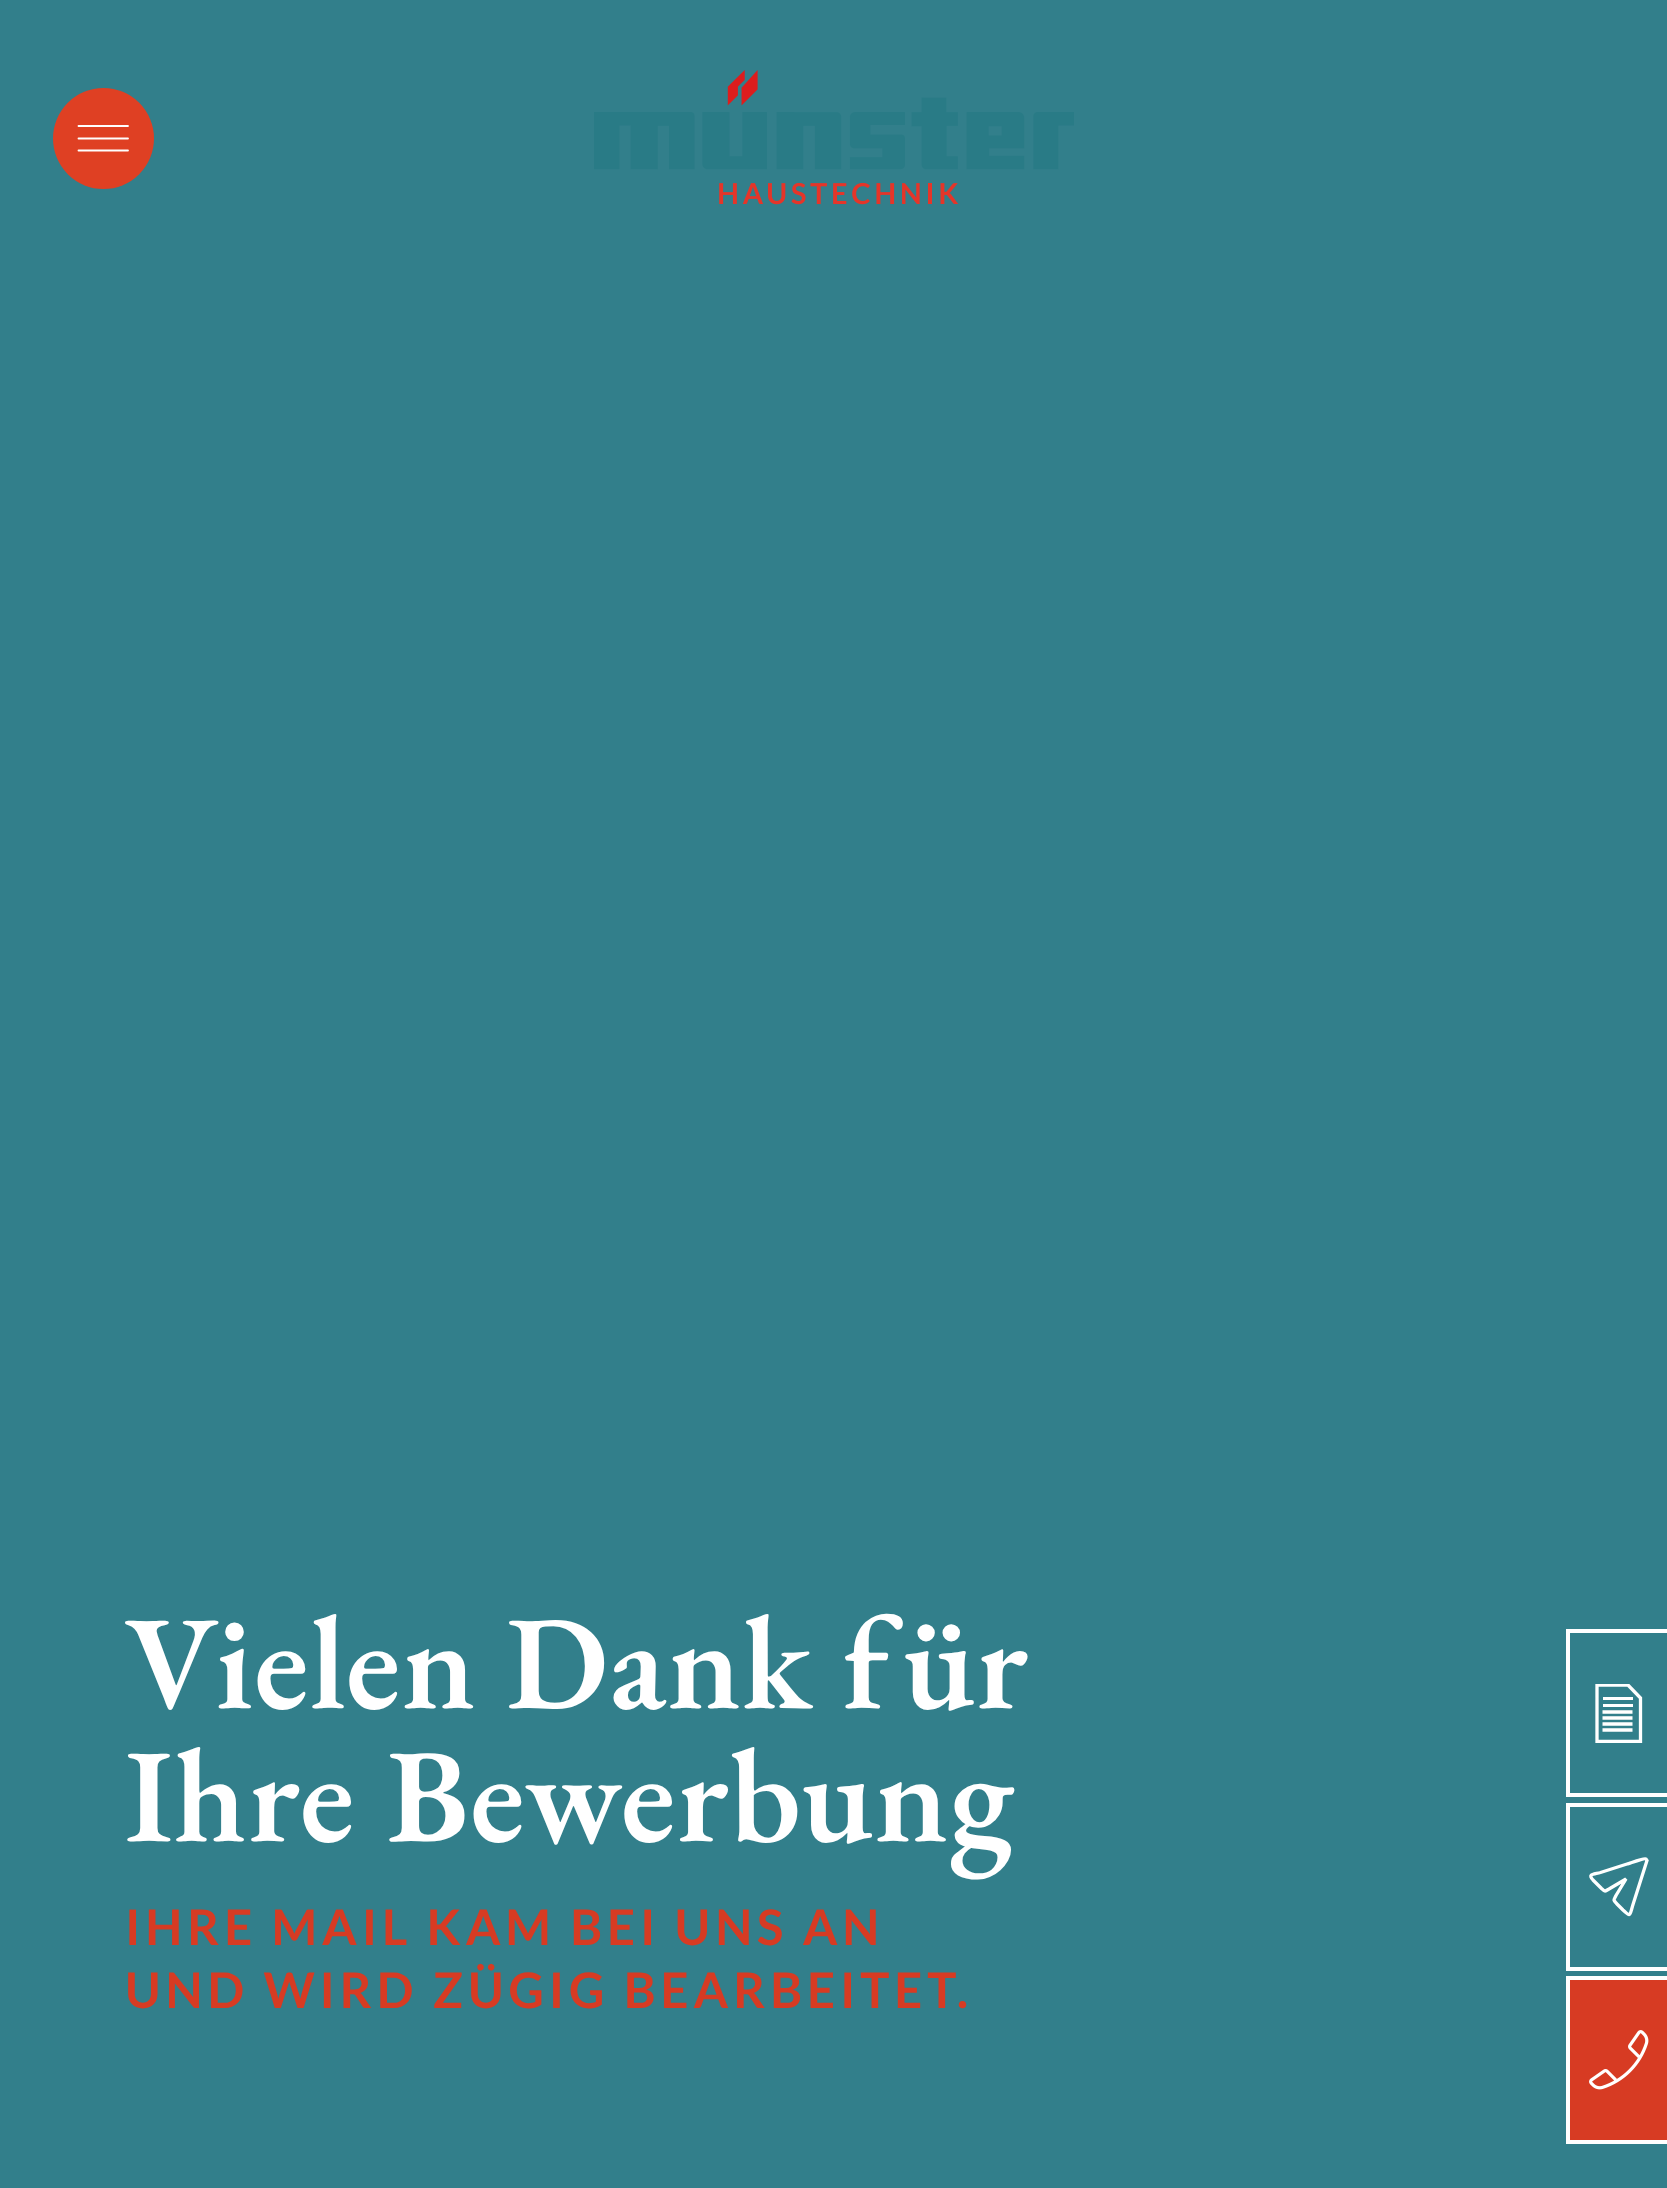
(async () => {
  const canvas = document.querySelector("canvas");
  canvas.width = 1667;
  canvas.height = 2188;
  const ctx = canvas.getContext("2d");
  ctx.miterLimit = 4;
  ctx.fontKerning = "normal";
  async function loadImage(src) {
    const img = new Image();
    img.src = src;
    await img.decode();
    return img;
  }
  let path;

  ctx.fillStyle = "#327f8b";
  ctx.fillRect(0, 0, 1667, 2188);
  ctx.fillStyle = "#df4023";
  ctx.beginPath();
  ctx.arc(103.5, 138.5, 50.5, 0, Math.PI * 2);
  ctx.fill();
  path = new Path2D("M128 126H78.5M78.5 138.5H128M78.5 150.5H128");
  ctx.strokeStyle = "#ffffff";
  ctx.lineWidth = 1.8;
  ctx.lineCap = "round";
  ctx.stroke(path);
  ctx.drawImage(await loadImage("img/1.png"), 594, 70, 480, 135);
  ctx.lineWidth = 4;
  ctx.strokeRect(1568, 1631, 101, 164);
  ctx.save();
  ctx.beginPath();
  ctx.rect(1589, 1684, 60, 59);
  ctx.clip();
  path = new Path2D("M1628 1685L1640.5 1698V1741.5H1597V1685Z");
  ctx.lineWidth = 3.3;
  ctx.lineCap = "butt";
  ctx.stroke(path);
  ctx.restore();
  ctx.fillStyle = "#ffffff";
  ctx.fillRect(1603, 1704, 30, 3);
  ctx.fillRect(1603, 1697, 30, 3);
  path = new Path2D("M1602.5 1712H1632.5M1602.5 1718H1632.5M1602.5 1724H1632.5M1602.5 1730H1632.5");
  ctx.lineWidth = 3.3;
  ctx.lineCap = "butt";
  ctx.stroke(path);
  ctx.lineWidth = 4;
  ctx.strokeRect(1568, 1805, 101, 164);
  path = new Path2D("M1647 1860.5L1633 1904.5C1629.5 1916 1631 1917.5 1623 1910L1616.5 1903.5C1613 1899.5 1613.5 1900.5 1616 1895.5L1626 1879L1609 1889C1604.5 1891.5 1605.5 1892 1601.5 1888.5L1593 1880C1587.5 1874 1593 1874.5 1600.5 1872.5L1627 1864C1629.5 1863.5 1644.5 1857.5 1646 1859Z");
  ctx.lineWidth = 3.3;
  ctx.stroke(path);
  ctx.fillStyle = "#d73b23";
  ctx.beginPath();
  ctx.rect(1568, 1978, 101, 164);
  ctx.fill();
  ctx.lineWidth = 4;
  ctx.stroke();
  ctx.drawImage(await loadImage("img/2.png"), 1589, 2030, 60, 60);
  ctx.letterSpacing = "1.3px";
  ctx.wordSpacing = "-2px";
  ctx.font = "600 133.5px EB Garamond";
  ctx.fillStyle = "#ffffff";
  ctx.fillText("Vielen Dank für", 125, 1708);
  ctx.wordSpacing = "0px";
  ctx.fillText("Ihre Bewerbung", 125, 1841);
  ctx.letterSpacing = "4.9px";
  ctx.font = "bold 49px Lato";
  ctx.fillStyle = "#d73b23";
  ctx.fillText("IHRE MAIL KAM BEI UNS AN", 125, 1945);
  ctx.fillText("UND WIRD ZÜGIG BEARBEITET.", 125, 2008);
})();
